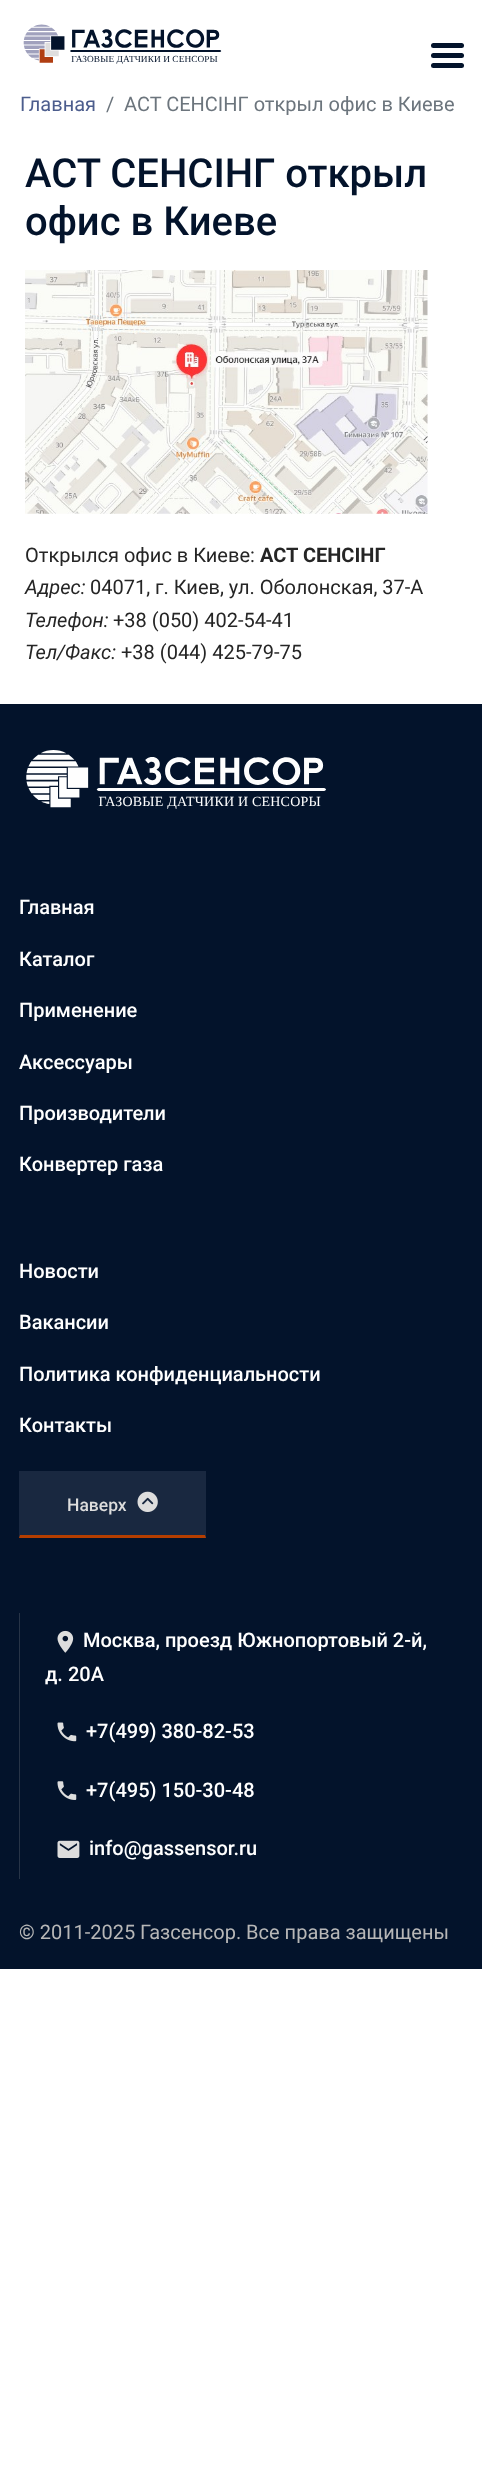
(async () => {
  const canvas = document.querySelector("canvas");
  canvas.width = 482;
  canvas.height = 2486;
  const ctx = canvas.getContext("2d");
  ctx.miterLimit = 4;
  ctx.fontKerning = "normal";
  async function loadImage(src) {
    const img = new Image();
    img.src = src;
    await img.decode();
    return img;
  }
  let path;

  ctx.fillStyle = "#ffffff";
  ctx.fillRect(0, 0, 482, 2486);
  ctx.drawImage(await loadImage("img/1.png"), 23, 24, 199, 40);
  ctx.fillStyle = "#03132b";
  ctx.beginPath();
  ctx.roundRect(431, 53, 33, 5, 2.5);
  ctx.fill();
  ctx.beginPath();
  ctx.roundRect(431, 43, 33, 5, 2.5);
  ctx.fill();
  ctx.beginPath();
  ctx.roundRect(431, 63, 33, 5, 2.5);
  ctx.fill();
  ctx.drawImage(await loadImage("img/2.png"), 25, 270, 403, 244);
  ctx.fillRect(0, 704, 482, 1265);
  ctx.drawImage(await loadImage("img/3.png"), 26, 750, 300, 59);
  ctx.fillStyle = "#192840";
  ctx.fillRect(19, 1471, 187, 67);
  ctx.fillStyle = "#b53e00";
  path = new Path2D("M206 1538H19L20 1535H205Z");
  ctx.fill(path);
  ctx.drawImage(await loadImage("img/4.png"), 137, 1491, 21, 21);
  ctx.fillStyle = "#273447";
  ctx.fillRect(19, 1613, 1, 266);
  ctx.drawImage(await loadImage("img/5.png"), 57, 1630, 17, 23);
  ctx.drawImage(await loadImage("img/6.png"), 57, 1722, 20, 20);
  ctx.drawImage(await loadImage("img/7.png"), 57, 1781, 20, 19);
  ctx.drawImage(await loadImage("img/8.png"), 57, 1840, 23, 18);
  ctx.font = "20px Roboto";
  ctx.fillStyle = "#4c5d8d";
  ctx.fillText("Главная", 20, 111);
  ctx.fillStyle = "#6c757d";
  ctx.fillText("/", 106, 111);
  ctx.fillText("АСТ СЕНСIНГ открыл офис в Киеве", 124, 111);
  ctx.font = "500 40px Roboto";
  ctx.fillStyle = "#03132b";
  ctx.fillText("АСТ СЕНСIНГ открыл", 25, 187);
  ctx.fillText("офис в Киеве", 25, 235);
  ctx.font = "20px Roboto";
  ctx.fillStyle = "#252525";
  ctx.fillText("Открылся офис в Киеве:", 25, 562);
  ctx.font = "bold 20px Roboto";
  ctx.fillText("АСТ СЕНСIНГ", 260, 562);
  ctx.font = "italic 20px Roboto";
  ctx.fillText("Адрес:", 25, 594);
  ctx.font = "20px Roboto";
  ctx.fillText("04071, г. Киев, ул. Оболонская, 37-А", 90, 594);
  ctx.font = "italic 20px Roboto";
  ctx.fillText("Телефон:", 25, 627);
  ctx.font = "20px Roboto";
  ctx.fillText("+38 (050) 402-54-41", 113, 627);
  ctx.font = "italic 20px Roboto";
  ctx.fillText("Тел/Факс:", 25, 659);
  ctx.font = "20px Roboto";
  ctx.fillText("+38 (044) 425-79-75", 121, 659);
  ctx.font = "500 20px Roboto";
  ctx.fillStyle = "#ffffff";
  for (const [text, x, y] of [
    ["Главная", 19, 914],
    ["Каталог", 19, 966],
    ["Применение", 19, 1017],
    ["Аксессуары", 19, 1069],
    ["Производители", 19, 1120],
    ["Конвертер газа", 19, 1171],
    ["Новости", 19, 1278],
    ["Вакансии", 19, 1329],
    ["Политика конфиденциальности", 19, 1381],
    ["Контакты", 19, 1432],
  ]) {
    ctx.fillText(text, x, y);
  }
  ctx.font = "500 17.5px Roboto";
  ctx.fillStyle = "#dddddd";
  ctx.fillText("Наверх", 67, 1511);
  ctx.font = "500 20px Roboto";
  ctx.fillStyle = "#ffffff";
  for (const [text, x, y] of [
    ["Москва, проезд Южнопортовый 2-й,", 83, 1647],
    ["д. 20А", 45, 1681],
    ["+7(499) 380-82-53", 86, 1738],
    ["+7(495) 150-30-48", 86, 1797],
    ["info@gassensor.ru", 89, 1855],
  ]) {
    ctx.fillText(text, x, y);
  }
  ctx.font = "20px Roboto";
  ctx.fillStyle = "#b7b7b7";
  ctx.fillText("© 2011-2025 Газсенсор. Все права защищены", 19, 1939);
})();
